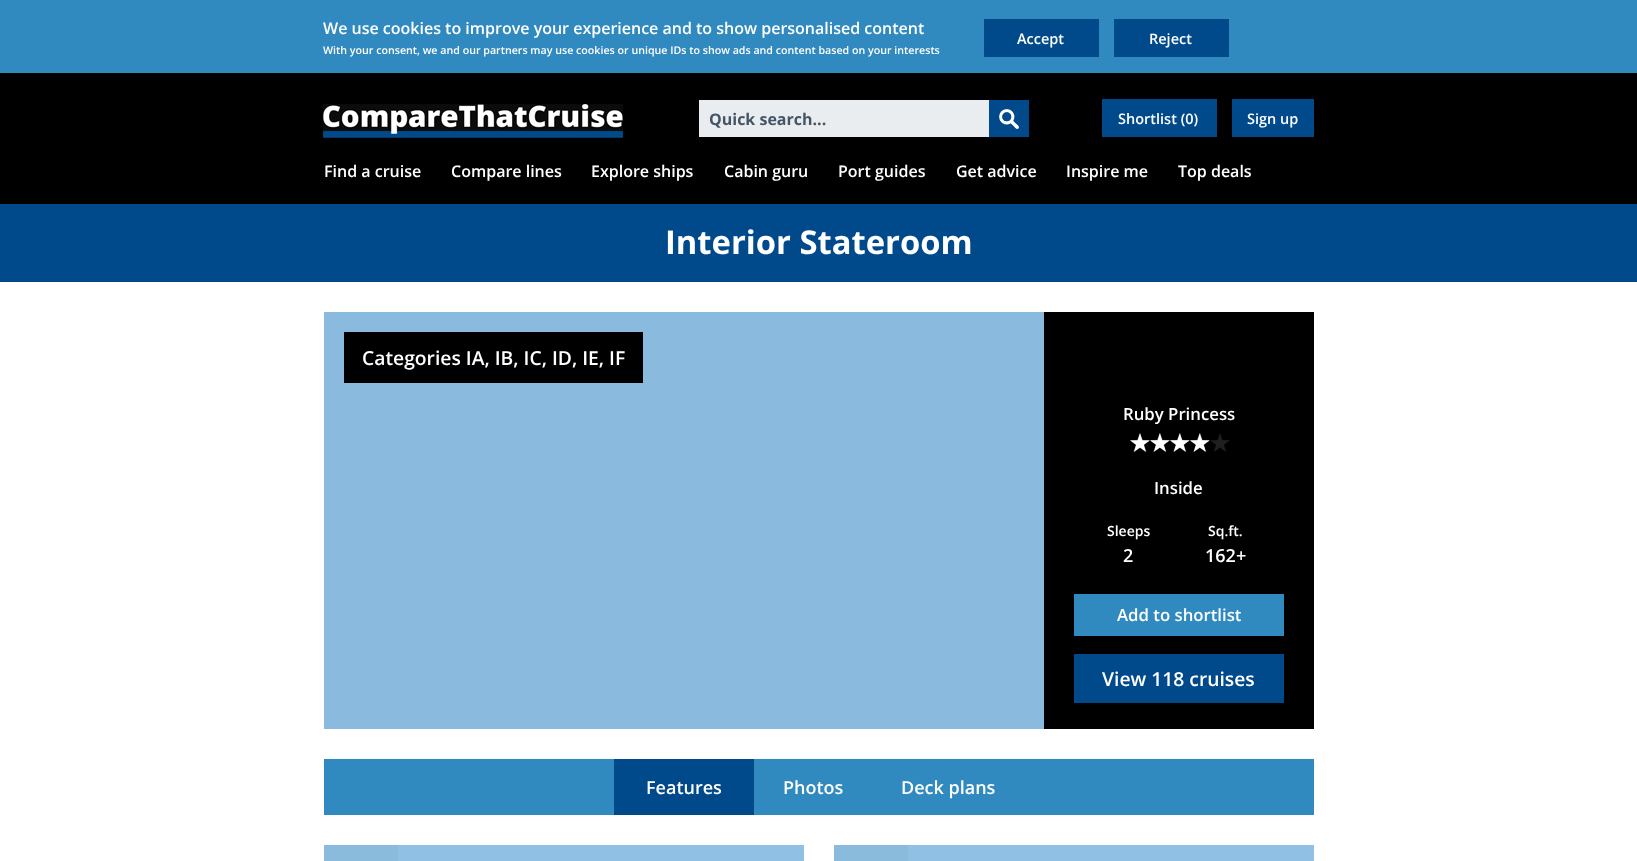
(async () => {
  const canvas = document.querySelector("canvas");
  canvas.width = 1637;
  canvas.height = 861;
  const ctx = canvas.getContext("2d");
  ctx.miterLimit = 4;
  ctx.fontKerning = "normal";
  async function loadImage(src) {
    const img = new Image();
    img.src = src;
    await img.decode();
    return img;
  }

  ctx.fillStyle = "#ffffff";
  ctx.fillRect(0, 0, 1637, 861);
  for (const [x, y, w, h, color] of [
    [0, 0, 1637, 73, "#308ac0"],
    [984, 19, 115, 38, "#004a8c"],
    [1114, 19, 115, 38, "#004a8c"],
    [0, 73, 1637, 131, "#000000"],
  ]) {
    ctx.fillStyle = color;
    ctx.fillRect(x, y, w, h);
  }
  ctx.drawImage(await loadImage("img/1.png"), 323, 104, 300, 34);
  ctx.fillStyle = "#eaedf0";
  ctx.fillRect(699, 100, 290, 37);
  ctx.fillStyle = "#004a8c";
  ctx.fillRect(989, 100, 40, 37);
  ctx.drawImage(await loadImage("img/2.png"), 999, 109, 20, 20);
  for (const [x, y, w, h, color] of [
    [1102, 99, 115, 38, "#004a8c"],
    [1232, 99, 82, 38, "#004a8c"],
    [0, 204, 1637, 78, "#004a8c"],
    [324, 312, 720, 417, "#8abadd"],
    [344, 332, 299, 51, "#000000"],
    [1044, 312, 270, 417, "#000000"],
  ]) {
    ctx.fillStyle = color;
    ctx.fillRect(x, y, w, h);
  }
  ctx.drawImage(await loadImage("img/3.png"), 1130, 433, 100, 19);
  ctx.drawImage(await loadImage("img/4.png"), 1130, 433, 80, 19);
  for (const [x, y, w, h, color] of [
    [1074, 594, 210, 42, "#308ac0"],
    [1074, 654, 210, 49, "#004a8c"],
    [324, 759, 990, 56, "#308ac0"],
    [614, 759, 140, 56, "#004a8c"],
    [398, 845, 406, 16, "#90c0e3"],
    [324, 845, 74, 16, "#8abadc"],
    [908, 845, 406, 16, "#90c0e3"],
    [834, 845, 74, 16, "#8abadc"],
  ]) {
    ctx.fillStyle = color;
    ctx.fillRect(x, y, w, h);
  }
  ctx.font = "600 16px Open Sans";
  ctx.fillStyle = "#ffffff";
  ctx.fillText("We use cookies to improve your experience and to show personalised content", 323, 34);
  ctx.font = "600 10.67px Open Sans";
  ctx.fillText("With your consent, we and our partners may use cookies or unique IDs to show ads and content based on your interests", 323, 54);
  ctx.font = "600 14.5px Open Sans";
  ctx.fillText("Accept", 1017, 44);
  ctx.fillText("Reject", 1149, 44);
  ctx.font = "bold 16px Open Sans";
  ctx.fillStyle = "#445566";
  ctx.fillText("Quick search...", 709, 125);
  ctx.font = "600 14.5px Open Sans";
  ctx.fillStyle = "#ffffff";
  ctx.fillText("Shortlist (0)", 1118, 124);
  ctx.fillText("Sign up", 1247, 124);
  ctx.font = "600 16px Open Sans";
  for (const [text, x, y] of [
    ["Find a cruise", 324, 177],
    ["Compare lines", 451, 177],
    ["Explore ships", 591, 177],
    ["Cabin guru", 724, 177],
    ["Port guides", 838, 177],
    ["Get advice", 956, 177],
    ["Inspire me", 1066, 177],
    ["Top deals", 1178, 177],
  ]) {
    ctx.fillText(text, x, y);
  }
  ctx.font = "bold 32.75px Open Sans";
  ctx.fillText("Interior Stateroom", 665, 254);
  ctx.font = "600 19.3px Open Sans";
  ctx.fillText("Categories IA, IB, IC, ID, IE, IF", 362, 365);
  ctx.font = "600 16.75px Open Sans";
  ctx.fillText("Ruby Princess", 1123, 420);
  ctx.fillText("Inside", 1154, 494);
  ctx.font = "600 14px Open Sans";
  ctx.fillText("Sleeps", 1107, 536);
  ctx.font = "600 18px Open Sans";
  ctx.fillText("2", 1123, 562);
  ctx.font = "600 14px Open Sans";
  ctx.fillText("Sq.ft.", 1208, 536);
  ctx.font = "600 18px Open Sans";
  ctx.fillText("162+", 1205, 562);
  ctx.font = "600 16.75px Open Sans";
  ctx.fillText("Add to shortlist", 1117, 621);
  ctx.font = "600 19.3px Open Sans";
  ctx.fillText("View 118 cruises", 1102, 686);
  ctx.font = "600 18px Open Sans";
  for (const [text, x, y] of [
    ["Features", 646, 794],
    ["Photos", 783, 794],
    ["Deck plans", 901, 794],
  ]) {
    ctx.fillText(text, x, y);
  }
})();
